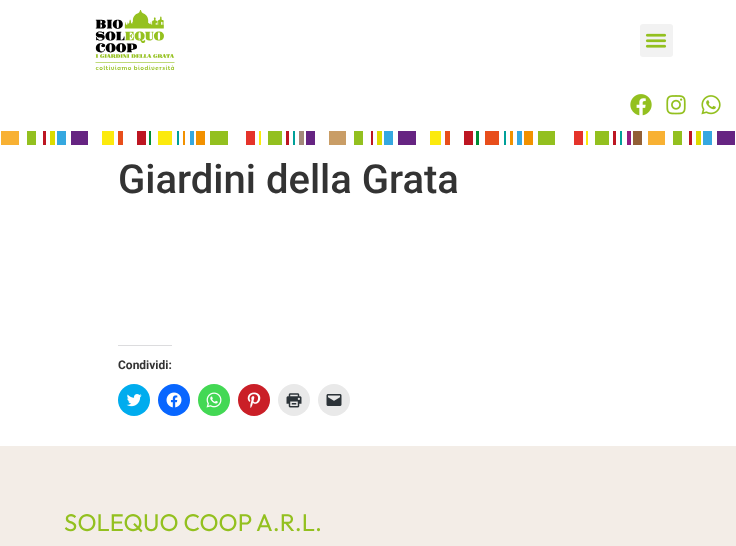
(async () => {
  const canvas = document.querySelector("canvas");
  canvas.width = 736;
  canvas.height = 546;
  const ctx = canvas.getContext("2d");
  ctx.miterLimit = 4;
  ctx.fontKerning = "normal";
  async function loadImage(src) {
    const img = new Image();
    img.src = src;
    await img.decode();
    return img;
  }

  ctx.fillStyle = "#ffffff";
  ctx.fillRect(0, 0, 736, 546);
  ctx.drawImage(await loadImage("img/1.png"), 95, 10, 80, 60);
  ctx.fillStyle = "#f2f2f2";
  ctx.beginPath();
  ctx.roundRect(640, 24, 33, 33, 3);
  ctx.fill();
  ctx.drawImage(await loadImage("img/2.png"), 645, 33, 22, 15);
  ctx.drawImage(await loadImage("img/3.png"), 630, 94, 22, 22);
  ctx.drawImage(await loadImage("img/4.png"), 666, 95, 20, 20);
  ctx.drawImage(await loadImage("img/5.png"), 701, 95, 20, 20);
  ctx.drawImage(await loadImage("img/6.png"), 1, 131, 734, 14);
  ctx.fillStyle = "#dcdcde";
  ctx.fillRect(118, 345, 54, 1);
  ctx.fillStyle = "#00acee";
  ctx.beginPath();
  ctx.arc(134, 400, 16, 0, Math.PI * 2);
  ctx.fill();
  ctx.drawImage(await loadImage("img/7.png"), 126, 394, 16, 13);
  ctx.fillStyle = "#0866ff";
  ctx.beginPath();
  ctx.arc(174, 400, 16, 0, Math.PI * 2);
  ctx.fill();
  ctx.drawImage(await loadImage("img/8.png"), 166, 392, 16, 16);
  ctx.fillStyle = "#43d854";
  ctx.beginPath();
  ctx.arc(214, 400, 16, 0, Math.PI * 2);
  ctx.fill();
  ctx.drawImage(await loadImage("img/9.png"), 206, 392, 16, 16);
  ctx.fillStyle = "#ca1f27";
  ctx.beginPath();
  ctx.arc(254, 400, 16, 0, Math.PI * 2);
  ctx.fill();
  ctx.drawImage(await loadImage("img/10.png"), 247, 392, 14, 16);
  ctx.fillStyle = "#e9e9e9";
  ctx.beginPath();
  ctx.arc(294, 400, 16, 0, Math.PI * 2);
  ctx.fill();
  ctx.drawImage(await loadImage("img/11.png"), 286, 393, 16, 15);
  ctx.beginPath();
  ctx.arc(334, 400, 16, 0, Math.PI * 2);
  ctx.fill();
  ctx.drawImage(await loadImage("img/12.png"), 326, 394, 16, 12);
  ctx.fillStyle = "#f3ede7";
  ctx.fillRect(0, 446, 736, 100);
  ctx.font = "500 40px Roboto";
  ctx.fillStyle = "#333333";
  ctx.fillText("Giardini della Grata", 118, 193);
  ctx.font = "bold 12px Roboto";
  ctx.fillText("Condividi:", 118, 369);
  ctx.font = "24px Outfit";
  ctx.fillStyle = "#93c01f";
  ctx.fillText("SOLEQUO COOP A.R.L.", 64, 531);
})();
